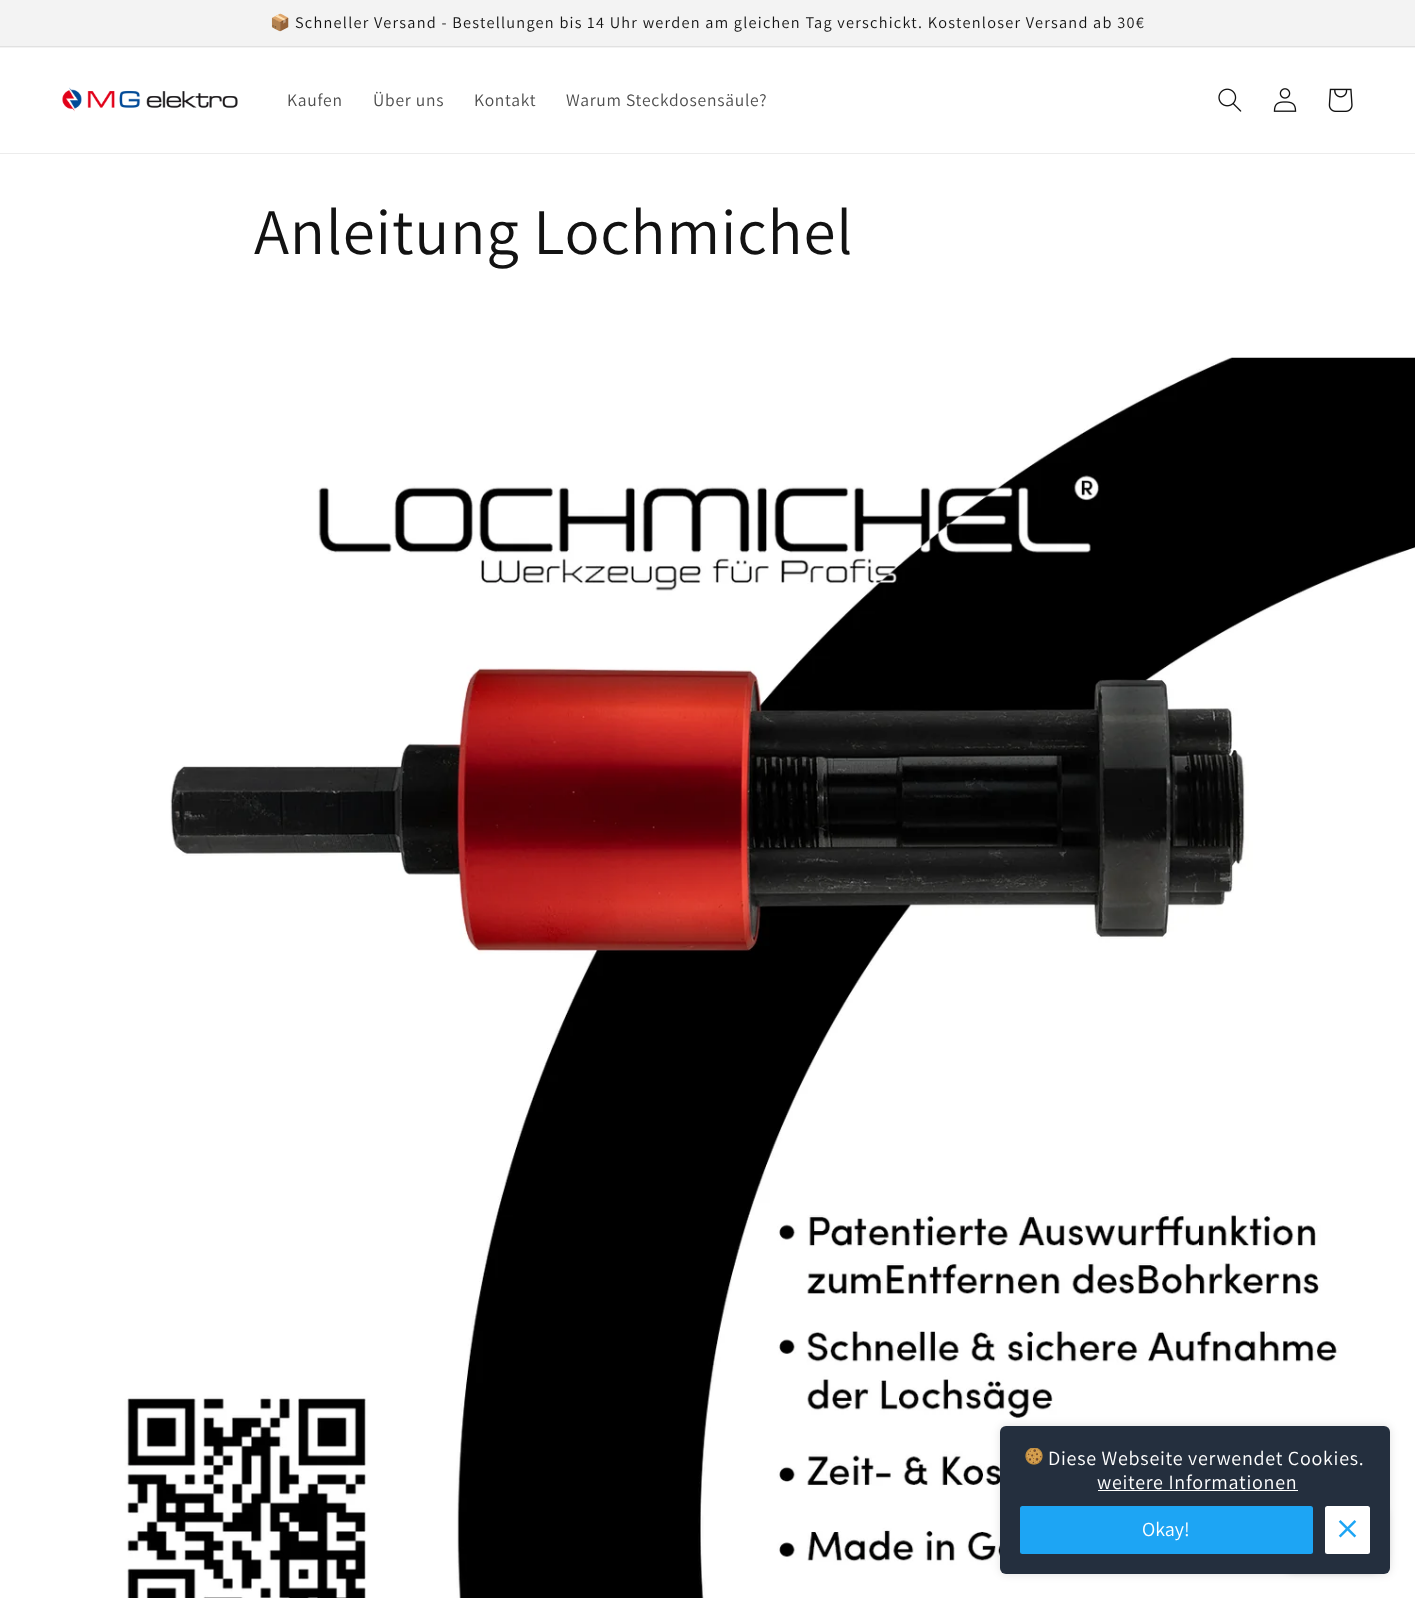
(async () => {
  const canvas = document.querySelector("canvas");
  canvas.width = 1415;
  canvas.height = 1598;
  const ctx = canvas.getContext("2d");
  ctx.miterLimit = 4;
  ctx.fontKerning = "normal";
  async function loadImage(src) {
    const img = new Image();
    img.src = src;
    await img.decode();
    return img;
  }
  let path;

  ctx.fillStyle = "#ffffff";
  ctx.fillRect(0, 0, 1415, 1598);
  for (const [x, y, w, h, color] of [
    [0, 0, 1415, 48, "#f3f3f3"],
    [0, 46, 1415, 1, "#e1e1e1"],
    [0, 153, 1415, 1, "#ececec"],
  ]) {
    ctx.fillStyle = color;
    ctx.fillRect(x, y, w, h);
  }
  ctx.drawImage(await loadImage("img/1.png"), 62, 87, 176, 25);
  ctx.drawImage(await loadImage("img/2.png"), 1218, 88, 24, 24);
  ctx.drawImage(await loadImage("img/3.png"), 1273, 88, 24, 24);
  ctx.drawImage(await loadImage("img/4.png"), 1328, 88, 25, 24);
  ctx.drawImage(await loadImage("img/5.png"), 0, 357, 1415, 1241);
  ctx.fillStyle = "rgba(0, 0, 0, 0.15)";
  ctx.filter = "blur(3px)";
  ctx.beginPath();
  ctx.roundRect(1276, 1498, 112, 75, 20);
  ctx.fill();
  ctx.filter = "none";
  ctx.fillStyle = "#242f3e";
  ctx.beginPath();
  ctx.roundRect(1000, 1426, 390, 148, 6);
  ctx.fill();
  ctx.save();
  path = new Path2D("M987 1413H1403V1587H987ZM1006 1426H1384C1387.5 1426 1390 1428.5 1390 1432V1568C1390 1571.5 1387.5 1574 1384 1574H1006C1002.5 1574 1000 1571.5 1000 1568V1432C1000 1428.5 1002.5 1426 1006 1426Z");
  ctx.clip(path, "evenodd");
  ctx.fillStyle = "rgba(0, 0, 0, 0.12)";
  ctx.filter = "blur(4px)";
  ctx.beginPath();
  ctx.roundRect(1000, 1426, 390, 148, 6);
  ctx.fill();
  ctx.filter = "none";
  ctx.restore();
  ctx.drawImage(await loadImage("img/6.png"), 1025, 1448, 18, 17);
  ctx.fillStyle = "#ffffff";
  ctx.fillRect(1098, 1490, 200, 1);
  ctx.fillStyle = "#1da5f4";
  ctx.beginPath();
  ctx.roundRect(1020, 1506, 293, 48, 2.5);
  ctx.fill();
  ctx.fillStyle = "#ffffff";
  ctx.beginPath();
  ctx.roundRect(1325, 1506, 45, 48, 2.5);
  ctx.fill();
  ctx.drawImage(await loadImage("img/7.png"), 1338, 1520, 19, 18);
  ctx.letterSpacing = "1.25px";
  ctx.font = "16.25px Noto Color Emoji";
  ctx.fillStyle = "#121212";
  ctx.fillText("📦", 270, 28);
  ctx.font = "16.25px Assistant";
  ctx.fillText("Schneller Versand - Bestellungen bis 14 Uhr werden am gleichen Tag verschickt. Kostenloser Versand ab 30€", 295, 28);
  ctx.letterSpacing = "0.75px";
  ctx.font = "17.5px Assistant";
  ctx.fillStyle = "#4d4d4d";
  for (const [text, x, y] of [
    ["Kaufen", 287, 106],
    ["Über uns", 373, 106],
    ["Kontakt", 474, 106],
    ["Warum Steckdosensäule?", 566, 106],
  ]) {
    ctx.fillText(text, x, y);
  }
  ctx.font = "65px Assistant";
  ctx.fillStyle = "#121212";
  ctx.fillText("Anleitung Lochmichel", 254, 254);
  ctx.font = "20px Assistant";
  ctx.fillStyle = "#ffffff";
  ctx.fillText("Diese Webseite verwendet Cookies.", 1048, 1465);
  ctx.fillText("weitere Informationen", 1097, 1489);
  ctx.letterSpacing = "0px";
  ctx.fillText("Okay!", 1142, 1536);
})();
